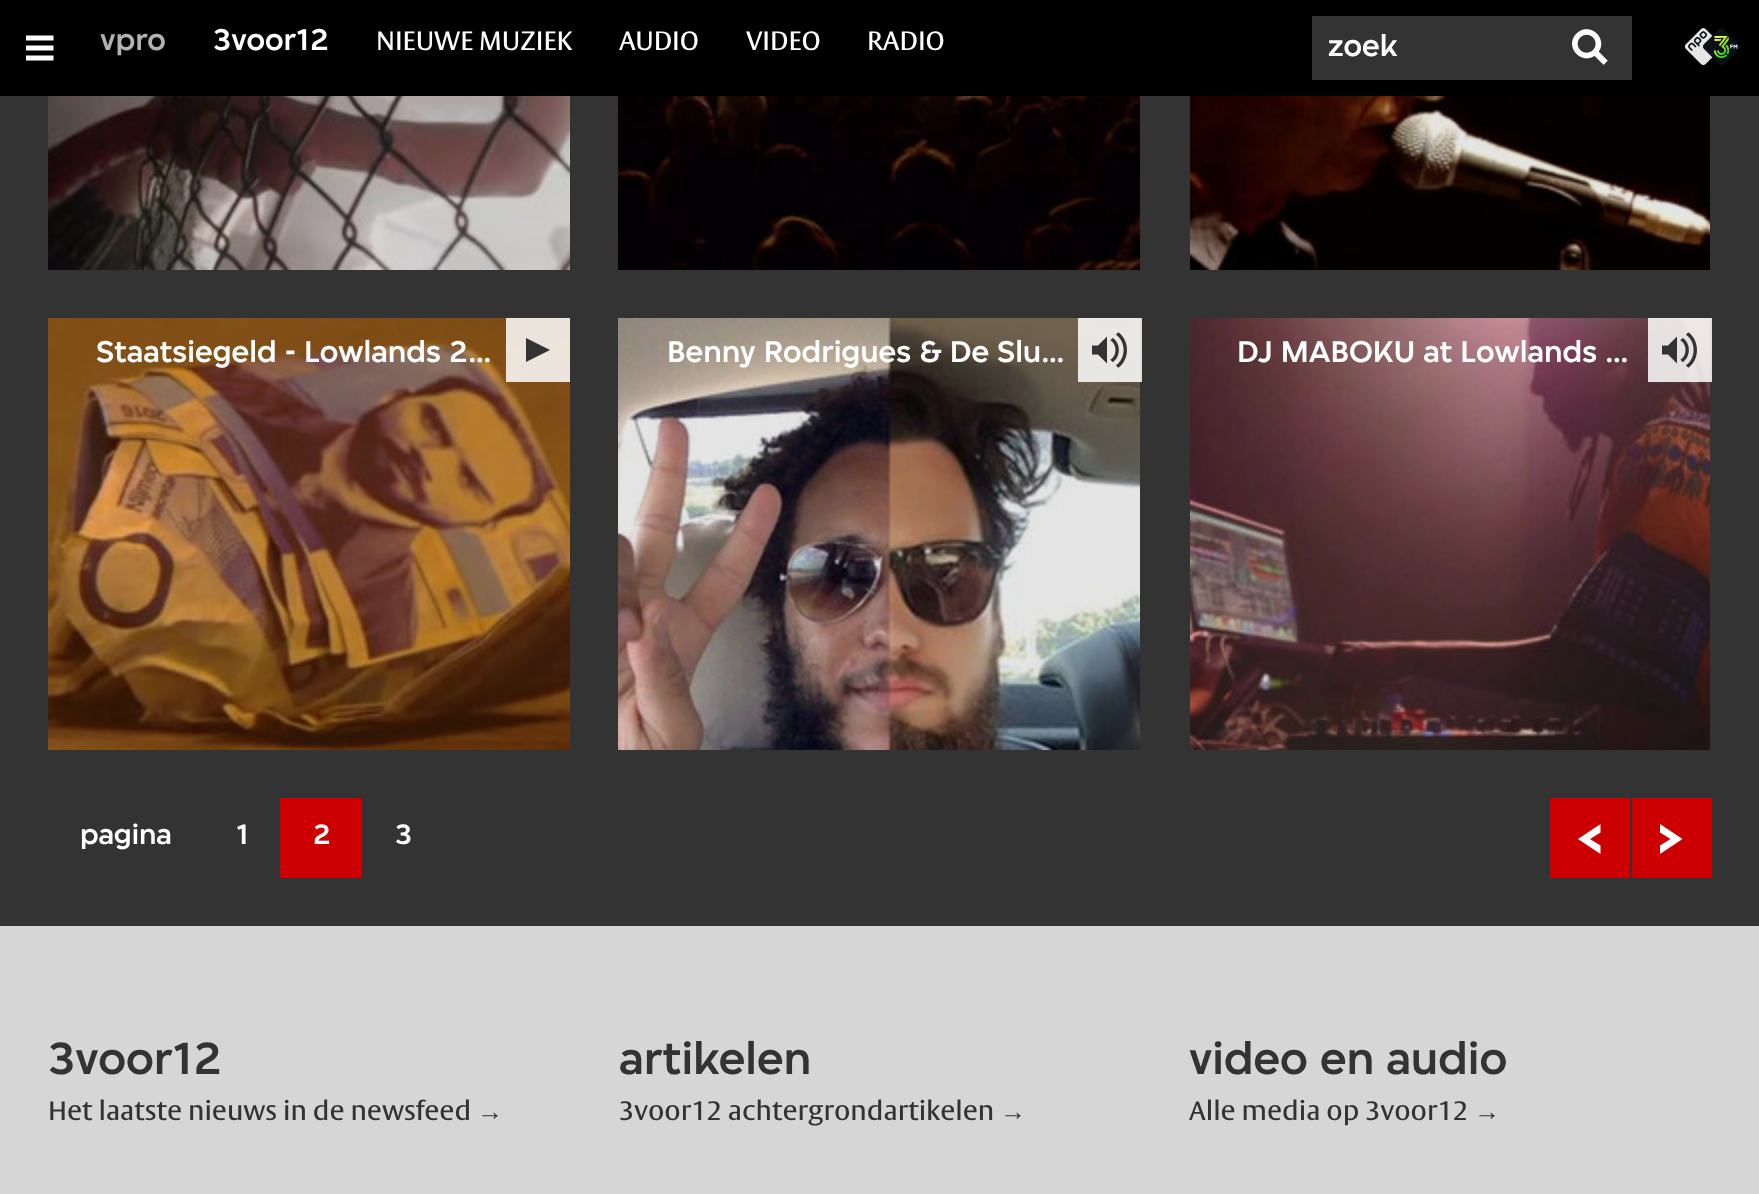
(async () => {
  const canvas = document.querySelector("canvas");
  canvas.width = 1759;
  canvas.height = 1194;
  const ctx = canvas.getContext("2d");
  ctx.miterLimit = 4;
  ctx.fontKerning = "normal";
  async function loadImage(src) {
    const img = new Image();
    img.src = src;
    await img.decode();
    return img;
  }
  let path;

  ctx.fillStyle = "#d6d6d6";
  ctx.fillRect(0, 0, 1759, 1194);
  ctx.fillStyle = "#000000";
  ctx.fillRect(0, 0, 1759, 96);
  ctx.drawImage(await loadImage("img/1.png"), 26, 35, 28, 26);
  ctx.fillStyle = "#333333";
  ctx.fillRect(1312, 16, 320, 64);
  ctx.drawImage(await loadImage("img/2.png"), 1572, 29, 36, 36);
  ctx.drawImage(await loadImage("img/3.png"), 1684, 28, 56, 38);
  ctx.fillRect(0, 96, 1759, 830);
  ctx.drawImage(await loadImage("img/4.png"), 48, 96, 522, 174);
  ctx.drawImage(await loadImage("img/5.png"), 618, 96, 522, 174);
  ctx.drawImage(await loadImage("img/6.png"), 1190, 96, 520, 174);
  ctx.drawImage(await loadImage("img/7.png"), 48, 318, 522, 432);
  ctx.fillStyle = "rgba(255, 255, 255, 0.85)";
  ctx.fillRect(506, 318, 64, 64);
  ctx.fillStyle = "#333333";
  path = new Path2D("M526 338V362L550 350Z");
  ctx.fill(path);
  ctx.drawImage(await loadImage("img/8.png"), 618, 318, 522, 432);
  ctx.fillStyle = "rgba(255, 255, 255, 0.85)";
  ctx.fillRect(1078, 318, 64, 64);
  ctx.drawImage(await loadImage("img/9.png"), 1092, 332, 35, 36);
  ctx.drawImage(await loadImage("img/10.png"), 1190, 318, 520, 432);
  ctx.fillRect(1648, 318, 64, 64);
  ctx.drawImage(await loadImage("img/11.png"), 1662, 332, 35, 36);
  ctx.fillStyle = "#cc0000";
  ctx.fillRect(280, 798, 82, 80);
  ctx.fillRect(1550, 798, 80, 80);
  ctx.fillStyle = "#ffffff";
  path = new Path2D("M1600.5 832.5L1590 839L1600.5 845.5V854L1578 839L1600.5 824Z");
  ctx.fill(path);
  ctx.fillStyle = "#cc0000";
  ctx.fillRect(1632, 798, 80, 80);
  ctx.fillStyle = "#ffffff";
  path = new Path2D("M1682.5 839L1660 854V845.5L1670.5 839L1660 832.5V824Z");
  ctx.fill(path);
  ctx.font = "500 32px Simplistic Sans";
  ctx.fillStyle = "#b3b3b3";
  ctx.fillText("vpro", 100, 50);
  ctx.fillStyle = "#ffffff";
  ctx.fillText("3voor12", 213, 50);
  ctx.font = "26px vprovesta";
  for (const [text, x, y] of [
    ["NIEUWE MUZIEK", 376, 50],
    ["AUDIO", 619, 50],
    ["VIDEO", 746, 50],
    ["RADIO", 867, 50],
  ]) {
    ctx.fillText(text, x, y);
  }
  ctx.font = "500 32px Simplistic Sans";
  for (const [text, x, y] of [
    ["zoek", 1328, 56],
    ["Staatsiegeld - Lowlands 2…", 96, 362],
    ["Benny Rodrigues & De Slu…", 667, 362],
    ["DJ MABOKU at Lowlands …", 1237, 362],
  ]) {
    ctx.fillText(text, x, y);
  }
  ctx.font = "500 30px Simplistic Sans";
  for (const [text, x, y] of [
    ["pagina", 80, 844],
    ["1", 236, 844],
    ["2", 313, 844],
    ["3", 395, 844],
  ]) {
    ctx.fillText(text, x, y);
  }
  ctx.font = "500 48px Simplistic Sans";
  ctx.fillStyle = "#333333";
  ctx.fillText("3voor12", 48, 1074);
  ctx.font = "26px vprovesta";
  ctx.fillText("Het laatste nieuws in de newsfeed", 48, 1120);
  ctx.font = "26px Liberation Sans";
  ctx.fillText("→", 477, 1120);
  ctx.font = "500 48px Simplistic Sans";
  ctx.fillText("artikelen", 619, 1074);
  ctx.font = "26px vprovesta";
  ctx.fillText("3voor12 achtergrondartikelen", 619, 1120);
  ctx.font = "26px Liberation Sans";
  ctx.fillText("→", 1000, 1120);
  ctx.font = "500 48px Simplistic Sans";
  ctx.fillText("video en audio", 1189, 1074);
  ctx.font = "26px vprovesta";
  ctx.fillText("Alle media op 3voor12", 1189, 1120);
  ctx.font = "26px Liberation Sans";
  ctx.fillText("→", 1474, 1120);
})();
